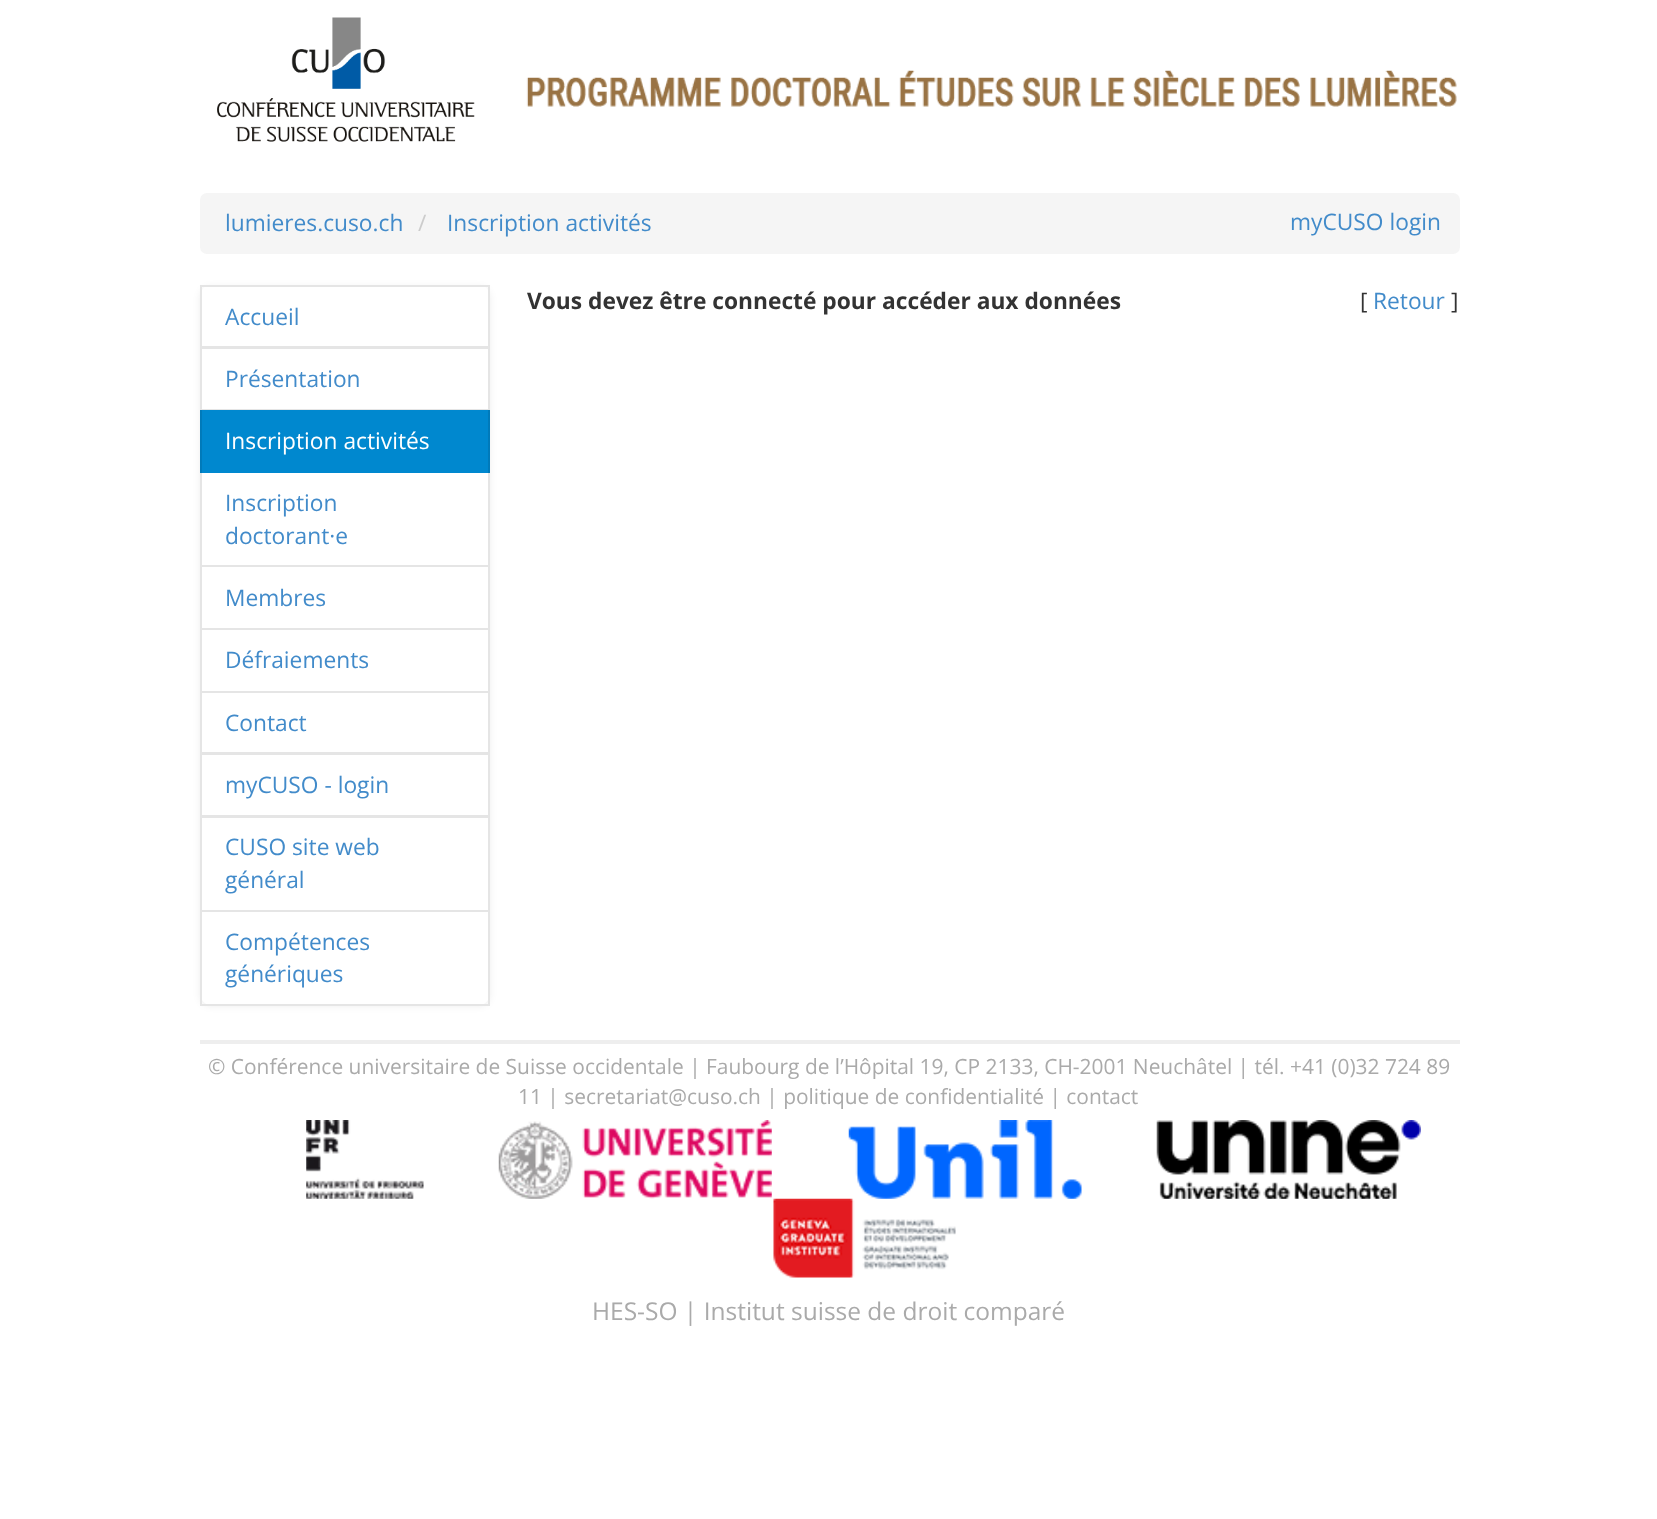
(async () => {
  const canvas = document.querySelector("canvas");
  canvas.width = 1657;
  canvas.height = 1519;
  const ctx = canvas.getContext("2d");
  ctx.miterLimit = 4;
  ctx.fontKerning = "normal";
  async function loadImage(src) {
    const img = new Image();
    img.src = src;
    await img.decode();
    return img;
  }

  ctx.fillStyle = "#ffffff";
  ctx.fillRect(0, 0, 1657, 1519);
  ctx.drawImage(await loadImage("img/1.png"), 217, 17, 258, 125);
  ctx.drawImage(await loadImage("img/2.png"), 526, 70, 931, 37);
  ctx.fillStyle = "#f5f5f5";
  ctx.beginPath();
  ctx.roundRect(200, 193, 1260, 61, 7);
  ctx.fill();
  ctx.fillStyle = "rgba(0, 0, 0, 0.07)";
  ctx.filter = "blur(3.5px)";
  ctx.beginPath();
  ctx.roundRect(200, 287, 290, 719, 11);
  ctx.fill();
  ctx.filter = "none";
  ctx.fillStyle = "#ffffff";
  ctx.beginPath();
  ctx.roundRect(200, 285, 290, 720, 11);
  ctx.fill();
  ctx.strokeStyle = "#e5e5e5";
  ctx.lineWidth = 2;
  ctx.strokeRect(201, 286, 288, 61);
  ctx.strokeRect(201, 348, 288, 62);
  ctx.strokeRect(201, 472, 288, 94);
  for (const [x, y, w, h, color] of [
    [202, 410, 286, 63, "#0088cf"],
    [488, 410, 2, 63, "#007aba"],
    [200, 410, 2, 63, "#007aba"],
  ]) {
    ctx.fillStyle = color;
    ctx.fillRect(x, y, w, h);
  }
  ctx.strokeRect(201, 566, 288, 63);
  ctx.strokeRect(201, 629, 288, 63);
  ctx.strokeRect(201, 692, 288, 61);
  ctx.strokeRect(201, 754, 288, 62);
  ctx.strokeRect(201, 817, 288, 94);
  ctx.strokeRect(201, 911, 288, 94);
  ctx.fillStyle = "#eeeeee";
  ctx.fillRect(200, 1040, 1260, 4);
  ctx.drawImage(await loadImage("img/3.png"), 306, 1120, 118, 79);
  ctx.drawImage(await loadImage("img/4.png"), 498, 1120, 274, 79);
  ctx.drawImage(await loadImage("img/5.png"), 848, 1120, 234, 79);
  ctx.drawImage(await loadImage("img/6.png"), 1156, 1120, 265, 79);
  ctx.drawImage(await loadImage("img/7.png"), 773, 1198, 183, 80);
  ctx.font = "22.75px Open Sans";
  ctx.fillStyle = "#428bca";
  ctx.fillText("lumieres.cuso.ch", 225, 231);
  ctx.fillStyle = "#cccccc";
  ctx.fillText("/", 418, 231);
  ctx.fillStyle = "#428bca";
  ctx.fillText("Inscription activités", 447, 231);
  ctx.fillText("myCUSO login", 1290, 230);
  ctx.font = "bold 22.75px Open Sans";
  ctx.fillStyle = "#333333";
  ctx.fillText("Vous devez être connecté pour accéder aux données", 527, 309);
  ctx.font = "22.75px Open Sans";
  ctx.fillText("[", 1360, 309);
  ctx.fillStyle = "#428bca";
  ctx.fillText("Retour", 1373, 309);
  ctx.fillStyle = "#333333";
  ctx.fillText("]", 1451, 309);
  ctx.fillStyle = "#428bca";
  ctx.fillText("Accueil", 225, 325);
  ctx.fillText("Présentation", 225, 387);
  ctx.fillStyle = "#ffffff";
  ctx.fillText("Inscription activités", 225, 449);
  ctx.fillStyle = "#428bca";
  for (const [text, x, y] of [
    ["Inscription", 225, 511],
    ["doctorant·e", 225, 544],
    ["Membres", 225, 606],
    ["Défraiements", 225, 668],
    ["Contact", 225, 731],
    ["myCUSO - login", 225, 793],
    ["CUSO site web", 225, 855],
    ["général", 225, 888],
    ["Compétences", 225, 950],
    ["génériques", 225, 982],
  ]) {
    ctx.fillText(text, x, y);
  }
  ctx.font = "20.93px Open Sans";
  ctx.fillStyle = "#aaaaaa";
  ctx.fillText("© Conférence universitaire de Suisse occidentale | Faubourg de l’Hôpital 19, CP 2133, CH-2001 Neuchâtel | tél. +41 (0)32 724 89", 208, 1074);
  ctx.fillText("11 | secretariat@cuso.ch | politique de confidentialité | contact", 518, 1104);
  ctx.font = "24.5px Open Sans";
  ctx.fillText("HES-SO | Institut suisse de droit comparé", 592, 1320);
})();
